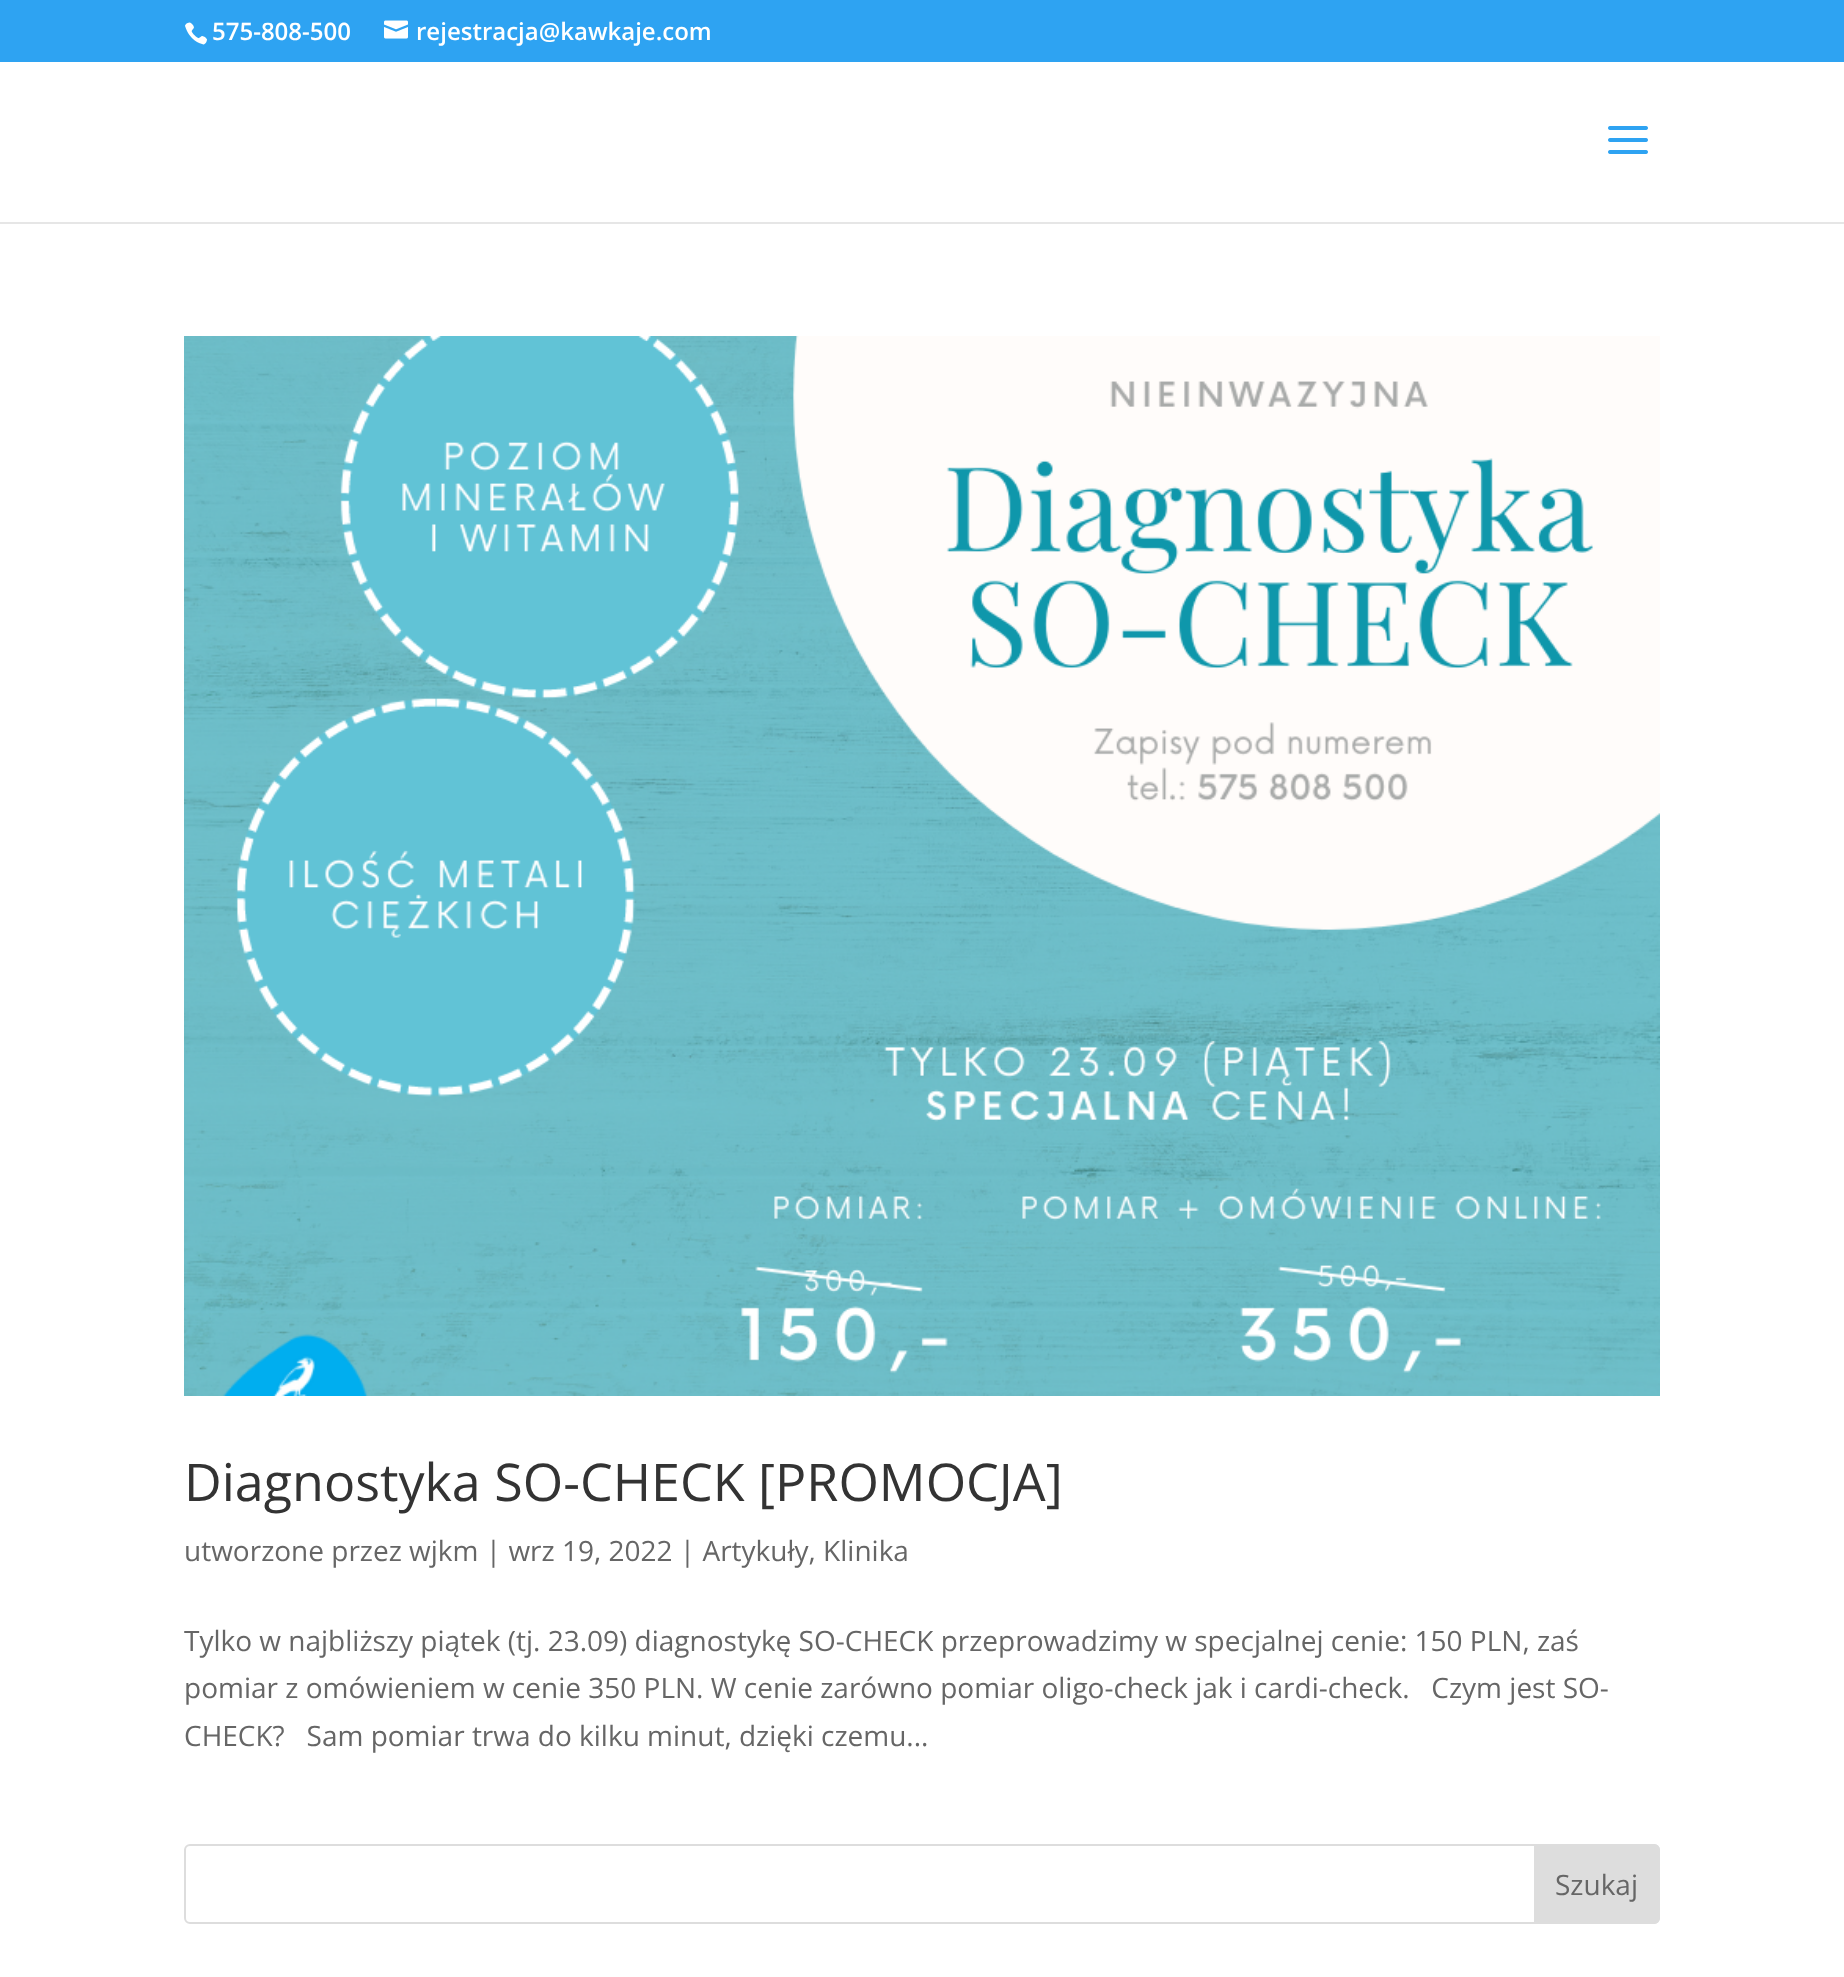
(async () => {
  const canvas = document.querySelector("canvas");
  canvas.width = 1844;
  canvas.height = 1977;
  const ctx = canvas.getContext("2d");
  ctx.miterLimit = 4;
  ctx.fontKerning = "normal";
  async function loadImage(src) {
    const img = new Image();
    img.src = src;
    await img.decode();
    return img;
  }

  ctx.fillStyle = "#ffffff";
  ctx.fillRect(0, 0, 1844, 1977);
  ctx.fillStyle = "#2ea3f2";
  ctx.fillRect(0, 0, 1844, 62);
  ctx.drawImage(await loadImage("img/1.png"), 185, 22, 22, 23);
  ctx.drawImage(await loadImage("img/2.png"), 384, 20, 24, 19);
  ctx.fillStyle = "#e6e6e6";
  ctx.fillRect(0, 222, 1844, 2);
  ctx.drawImage(await loadImage("img/3.png"), 1608, 126, 40, 28);
  ctx.drawImage(await loadImage("img/4.png"), 184, 336, 1476, 1060);
  ctx.beginPath();
  ctx.roundRect(185, 1845, 1474, 78, 5);
  ctx.strokeStyle = "#dddddd";
  ctx.lineWidth = 2;
  ctx.stroke();
  ctx.fillStyle = "#dddddd";
  ctx.beginPath();
  ctx.roundRect(1535, 1845, 124, 78, [0, 5, 5, 0]);
  ctx.fill();
  ctx.stroke();
  ctx.font = "600 24px Open Sans";
  ctx.fillStyle = "#ffffff";
  ctx.fillText("575-808-500", 212, 40);
  ctx.fillText("rejestracja@kawkaje.com", 416, 40);
  ctx.font = "52px Open Sans";
  ctx.fillStyle = "#333333";
  ctx.fillText("Diagnostyka SO-CHECK [PROMOCJA]", 184, 1501);
  ctx.font = "28px Open Sans";
  ctx.fillStyle = "#666666";
  for (const [text, x, y] of [
    ["utworzone przez wjkm | wrz 19, 2022 | Artykuły, Klinika", 184, 1561],
    ["Tylko w najbliższy piątek (tj. 23.09) diagnostykę SO-CHECK przeprowadzimy w specjalnej cenie: 150 PLN, zaś", 184, 1651],
    ["pomiar z omówieniem w cenie 350 PLN. W cenie zarówno pomiar oligo-check jak i cardi-check.   Czym jest SO-", 184, 1698],
    ["CHECK?   Sam pomiar trwa do kilku minut, dzięki czemu...", 184, 1746],
    ["Szukaj", 1555, 1895],
  ]) {
    ctx.fillText(text, x, y);
  }
})();
